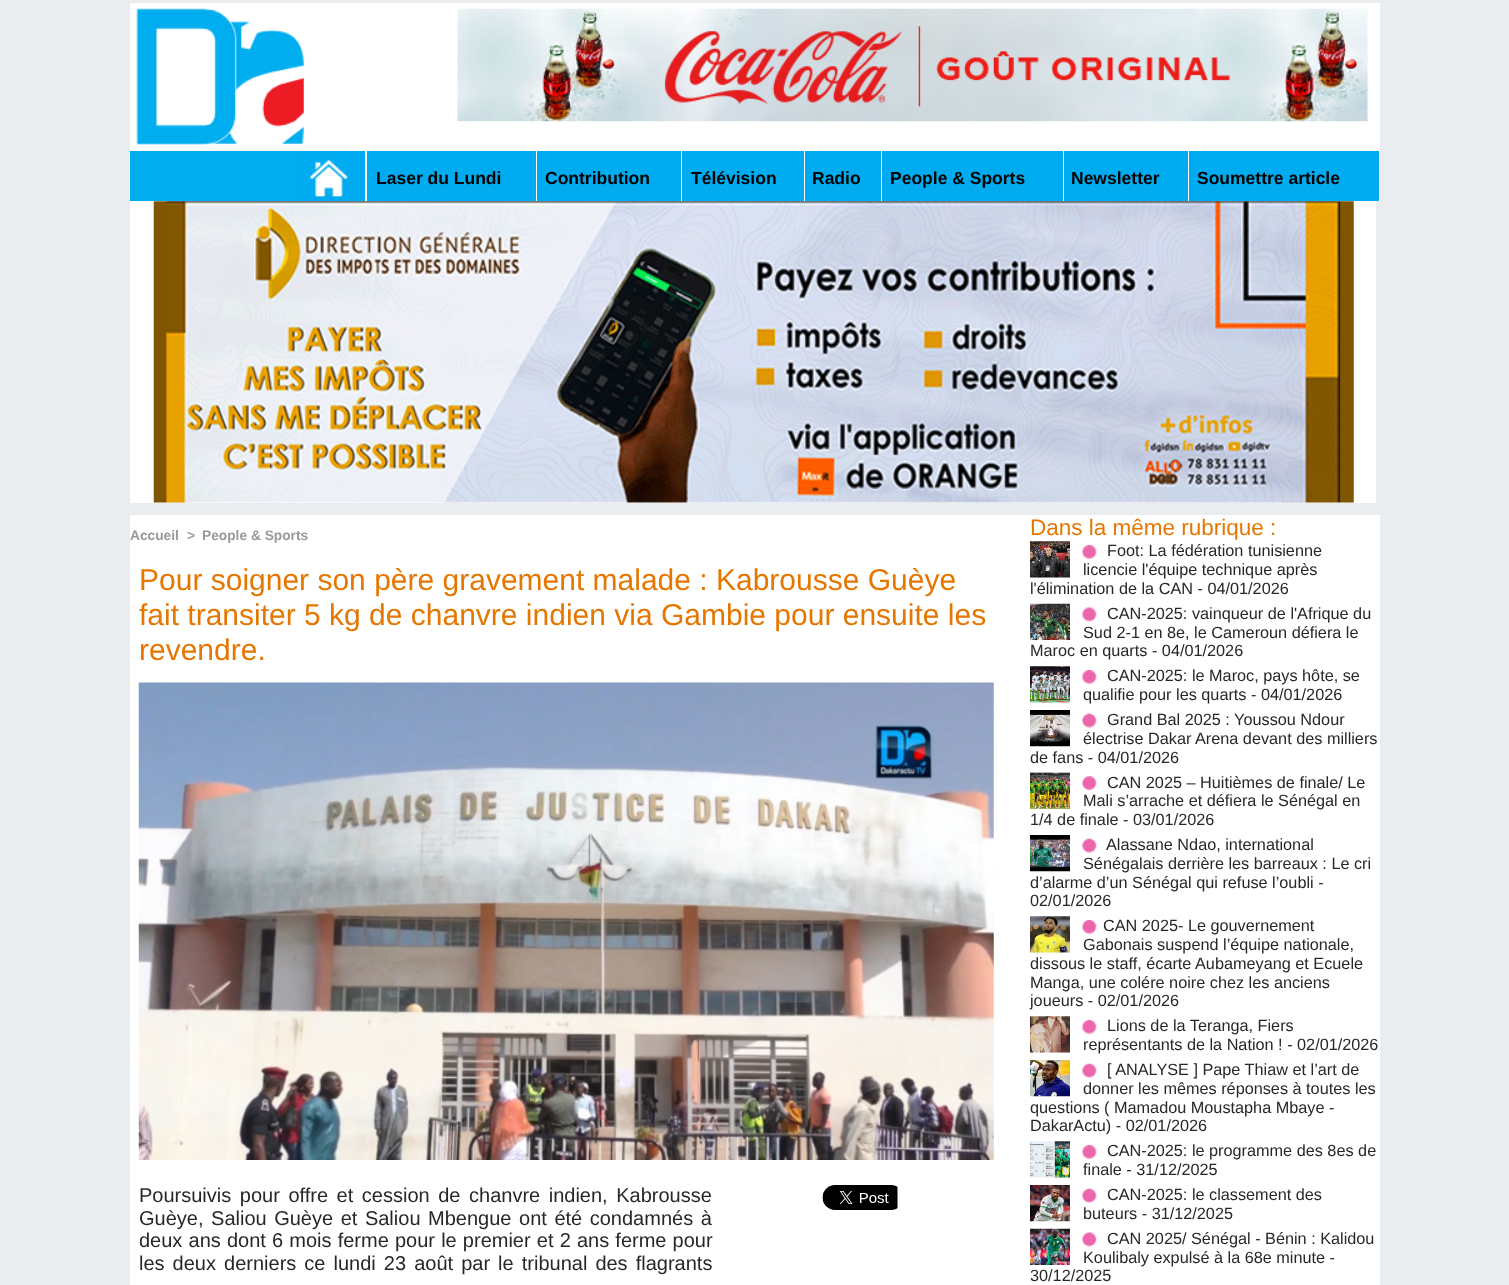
(async () => {
  const canvas = document.querySelector("canvas");
  canvas.width = 1509;
  canvas.height = 1285;
  const ctx = canvas.getContext("2d");
  ctx.miterLimit = 4;
  ctx.fontKerning = "normal";
  async function loadImage(src) {
    const img = new Image();
    img.src = src;
    await img.decode();
    return img;
  }

  ctx.fillStyle = "#e9edf0";
  ctx.fillRect(0, 0, 1509, 1285);
  ctx.fillStyle = "#ffffff";
  ctx.fillRect(130, 3, 1250, 148);
  ctx.drawImage(await loadImage("img/1.png"), 136, 8, 168, 137);
  ctx.drawImage(await loadImage("img/2.png"), 457, 8, 911, 114);
  for (const [x, y, w, h, color] of [
    [130, 151, 173, 50, "#00adef"],
    [303, 151, 62, 50, "#00abef"],
    [365, 151, 2, 50, "#ffffff"],
  ]) {
    ctx.fillStyle = color;
    ctx.fillRect(x, y, w, h);
  }
  ctx.drawImage(await loadImage("img/3.png"), 310, 159, 38, 38);
  for (const [x, y, w, h, color] of [
    [367, 151, 437, 50, "#00abef"],
    [536, 151, 1, 50, "#ffffff"],
    [681, 151, 1, 50, "#ffffff"],
    [804, 151, 1, 50, "#ffffff"],
    [805, 151, 258, 50, "#00abef"],
    [881, 151, 1, 50, "#ffffff"],
    [1063, 151, 1, 50, "#ffffff"],
    [1064, 151, 124, 50, "#00abef"],
    [1188, 151, 1, 50, "#ffffff"],
    [1189, 151, 190, 50, "#00abef"],
    [1379, 151, 1, 50, "#ffffff"],
    [130, 201, 1246, 302, "#ffffff"],
  ]) {
    ctx.fillStyle = color;
    ctx.fillRect(x, y, w, h);
  }
  ctx.drawImage(await loadImage("img/4.png"), 153, 201, 1201, 302);
  ctx.fillRect(130, 515, 1250, 770);
  ctx.drawImage(await loadImage("img/5.png"), 138, 682, 856, 478);
  ctx.drawImage(await loadImage("img/6.png"), 822, 1185, 76, 25);
  ctx.drawImage(await loadImage("img/7.png"), 1030, 541, 40, 37);
  ctx.drawImage(await loadImage("img/8.png"), 1082, 545, 15, 14);
  ctx.drawImage(await loadImage("img/9.png"), 1030, 603, 40, 37);
  ctx.drawImage(await loadImage("img/10.png"), 1082, 607, 15, 15);
  ctx.drawImage(await loadImage("img/11.png"), 1030, 666, 40, 37);
  ctx.drawImage(await loadImage("img/8.png"), 1082, 670, 15, 14);
  ctx.drawImage(await loadImage("img/12.png"), 1030, 710, 40, 37);
  ctx.drawImage(await loadImage("img/13.png"), 1082, 713, 15, 15);
  ctx.drawImage(await loadImage("img/14.png"), 1030, 772, 40, 37);
  ctx.drawImage(await loadImage("img/15.png"), 1082, 776, 15, 15);
  ctx.drawImage(await loadImage("img/16.png"), 1030, 835, 40, 37);
  ctx.drawImage(await loadImage("img/13.png"), 1082, 838, 15, 15);
  ctx.drawImage(await loadImage("img/17.png"), 1030, 916, 40, 37);
  ctx.drawImage(await loadImage("img/8.png"), 1082, 920, 15, 14);
  ctx.drawImage(await loadImage("img/18.png"), 1030, 1016, 40, 37);
  ctx.drawImage(await loadImage("img/8.png"), 1082, 1020, 15, 14);
  ctx.drawImage(await loadImage("img/19.png"), 1030, 1060, 40, 37);
  ctx.drawImage(await loadImage("img/13.png"), 1082, 1063, 15, 15);
  ctx.drawImage(await loadImage("img/20.png"), 1030, 1141, 40, 37);
  ctx.drawImage(await loadImage("img/8.png"), 1082, 1145, 15, 14);
  ctx.drawImage(await loadImage("img/21.png"), 1030, 1185, 40, 37);
  ctx.drawImage(await loadImage("img/13.png"), 1082, 1188, 15, 15);
  ctx.drawImage(await loadImage("img/22.png"), 1030, 1228, 40, 37);
  ctx.drawImage(await loadImage("img/10.png"), 1082, 1232, 15, 15);
  ctx.font = "bold 17.5px Liberation Sans";
  ctx.fillStyle = "#000000";
  for (const [text, x, y] of [
    ["Laser du Lundi", 376, 184],
    ["Contribution", 545, 184],
    ["Télévision", 691, 184],
    ["Radio", 812, 184],
    ["People & Sports", 890, 184],
    ["Newsletter", 1071, 184],
    ["Soumettre article", 1197, 184],
  ]) {
    ctx.fillText(text, x, y);
  }
  ctx.font = "bold 13.75px Liberation Sans";
  ctx.fillStyle = "#999999";
  for (const [text, x, y] of [
    ["Accueil", 130, 540],
    [">", 187, 540],
    ["People & Sports", 202, 540],
  ]) {
    ctx.fillText(text, x, y);
  }
  ctx.font = "30px Liberation Sans";
  ctx.fillStyle = "#e57700";
  for (const [text, x, y] of [
    ["Pour soigner son père gravement malade : Kabrousse Guèye", 139, 590],
    ["fait transiter 5 kg de chanvre indien via Gambie pour ensuite les", 139, 625],
    ["revendre.", 139, 660],
  ]) {
    ctx.fillText(text, x, y);
  }
  ctx.wordSpacing = "3px";
  ctx.font = "20px Liberation Sans";
  ctx.fillStyle = "#272727";
  ctx.fillText("Poursuivis pour offre et cession de chanvre indien, Kabrousse", 139, 1202);
  ctx.wordSpacing = "2px";
  ctx.fillText("Guèye, Saliou Guèye et Saliou Mbengue ont été condamnés à", 139, 1225);
  ctx.wordSpacing = "0.6px";
  ctx.fillText("deux ans dont 6 mois ferme pour le premier et 2 ans ferme pour", 139, 1247);
  ctx.wordSpacing = "2.5px";
  ctx.fillText("les deux derniers ce lundi 23 août par le tribunal des flagrants", 139, 1270);
  ctx.wordSpacing = "0px";
  ctx.font = "22.5px Liberation Sans";
  ctx.fillStyle = "#e57700";
  ctx.fillText("Dans la même rubrique :", 1030, 535);
  ctx.font = "16.25px Liberation Sans";
  ctx.fillStyle = "#272727";
  for (const [text, x, y] of [
    ["Foot: La fédération tunisienne", 1107, 556],
    ["licencie l'équipe technique après", 1083, 575],
    ["l'élimination de la CAN - 04/01/2026", 1030, 594],
    ["CAN-2025: vainqueur de l'Afrique du", 1107, 619],
    ["Sud 2-1 en 8e, le Cameroun défiera le", 1083, 638],
    ["Maroc en quarts - 04/01/2026", 1030, 656],
    ["CAN-2025: le Maroc, pays hôte, se", 1107, 681],
    ["qualifie pour les quarts - 04/01/2026", 1083, 700],
    ["Grand Bal 2025 : Youssou Ndour", 1107, 725],
    ["électrise Dakar Arena devant des milliers", 1083, 744],
    ["de fans - 04/01/2026", 1030, 763],
    ["CAN 2025 – Huitièmes de finale/ Le", 1107, 788],
    ["Mali s’arrache et défiera le Sénégal en", 1083, 806],
    ["1/4 de finale - 03/01/2026", 1030, 825],
    ["Alassane Ndao, international", 1106, 850],
    ["Sénégalais derrière les barreaux : Le cri", 1083, 869],
    ["d’alarme d’un Sénégal qui refuse l’oubli -", 1030, 888],
    ["02/01/2026", 1030, 906],
    ["CAN 2025- Le gouvernement", 1103, 931],
    ["Gabonais suspend l’équipe nationale,", 1083, 950],
    ["dissous le staff, écarte Aubameyang et Ecuele", 1030, 969],
    ["Manga, une colére noire chez les anciens", 1030, 988],
    ["joueurs - 02/01/2026", 1030, 1006],
    ["Lions de la Teranga, Fiers", 1107, 1031],
    ["représentants de la Nation ! - 02/01/2026", 1083, 1050],
    ["[ ANALYSE ] Pape Thiaw et l’art de", 1107, 1075],
    ["donner les mêmes réponses à toutes les", 1083, 1094],
    ["questions ( Mamadou Moustapha Mbaye -", 1030, 1113],
    ["DakarActu) - 02/01/2026", 1030, 1131],
    ["CAN-2025: le programme des 8es de", 1107, 1156],
    ["finale - 31/12/2025", 1083, 1175],
    ["CAN-2025: le classement des", 1107, 1200],
    ["buteurs - 31/12/2025", 1083, 1219],
    ["CAN 2025/ Sénégal - Bénin : Kalidou", 1107, 1244],
    ["Koulibaly expulsé à la 68e minute -", 1083, 1263],
    ["30/12/2025", 1030, 1281],
  ]) {
    ctx.fillText(text, x, y);
  }
})();
